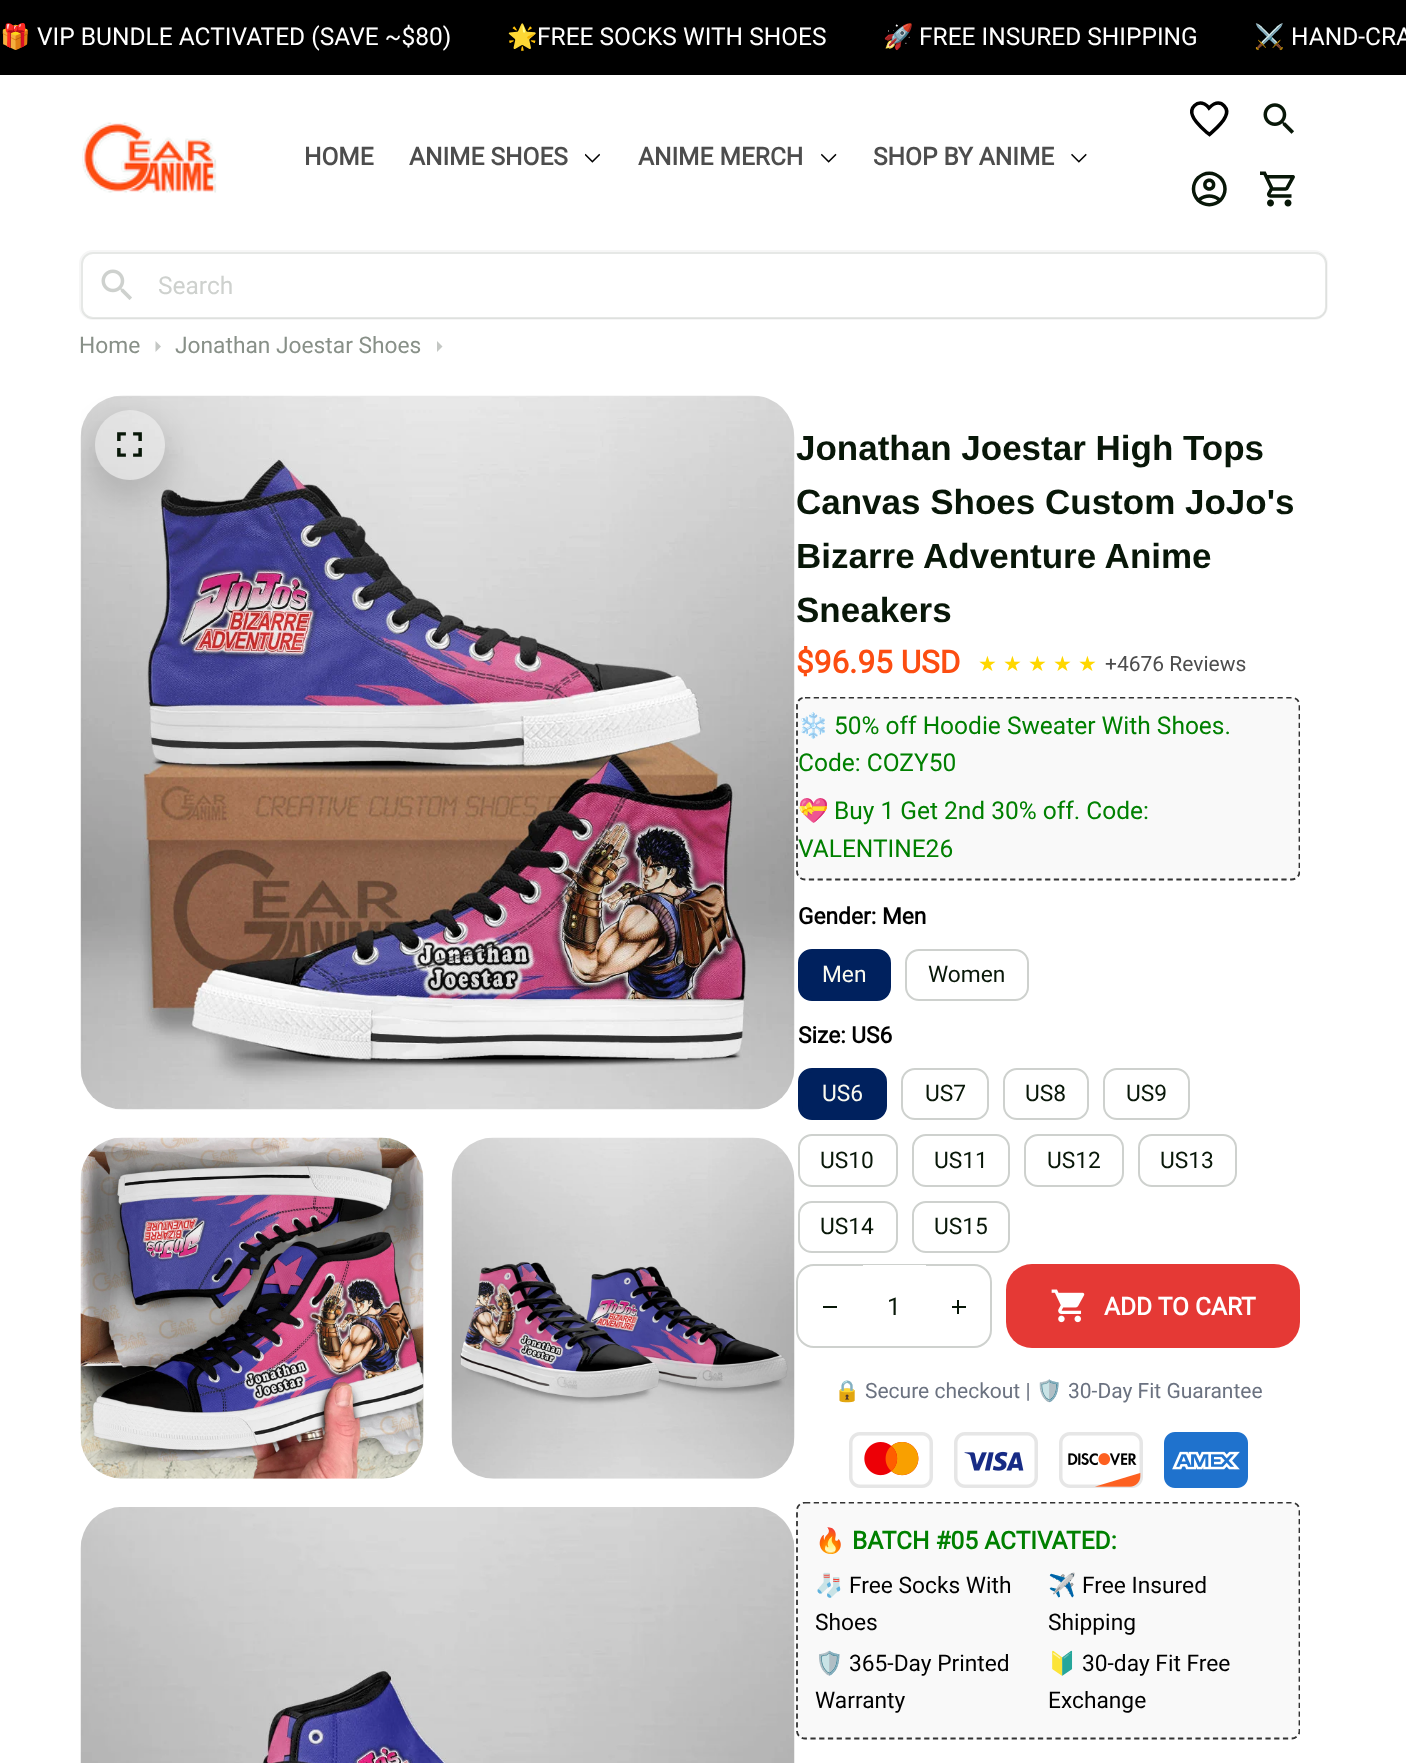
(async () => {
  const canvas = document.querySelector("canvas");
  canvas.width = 1406;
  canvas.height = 1763;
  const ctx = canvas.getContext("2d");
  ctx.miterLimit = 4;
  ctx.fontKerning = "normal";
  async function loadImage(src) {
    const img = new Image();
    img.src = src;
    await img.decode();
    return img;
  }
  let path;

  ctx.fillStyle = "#ffffff";
  ctx.fillRect(0, 0, 1406, 1763);
  ctx.fillStyle = "#000000";
  ctx.fillRect(0, 0, 1406, 75);
  ctx.drawImage(await loadImage("img/1.png"), 82, 122, 135, 71);
  ctx.drawImage(await loadImage("img/2.png"), 585, 153, 15, 10);
  ctx.drawImage(await loadImage("img/3.png"), 821, 153, 16, 10);
  ctx.drawImage(await loadImage("img/4.png"), 1071, 153, 16, 10);
  path = new Path2D("M1207.5 133C1202.5 128.5 1194.5 122 1192.5 115.5C1189.5 107.5 1197 100.5 1204.5 104C1206.5 105 1208 106.5 1209 108C1210.5 106.5 1212 105 1214 104C1222 100.5 1229.5 108.5 1225.5 116.5C1222.5 123.5 1215 129.5 1209.5 134.5Z");
  ctx.strokeStyle = "#000000";
  ctx.lineWidth = 3.5;
  ctx.stroke(path);
  ctx.drawImage(await loadImage("img/5.png"), 1263, 103, 31, 31);
  ctx.drawImage(await loadImage("img/6.png"), 1191, 171, 36, 36);
  ctx.drawImage(await loadImage("img/7.png"), 1260, 171, 35, 36);
  ctx.beginPath();
  ctx.roundRect(80, 251, 1247, 68, 13);
  ctx.strokeStyle = "#f6f6f6";
  ctx.lineWidth = 2;
  ctx.stroke();
  ctx.beginPath();
  ctx.roundRect(82, 253, 1244, 65, 11);
  ctx.strokeStyle = "rgba(132, 139, 132, 0.2)";
  ctx.stroke();
  ctx.drawImage(await loadImage("img/8.png"), 101, 269, 31, 31);
  ctx.fillStyle = "#c4c7c4";
  path = new Path2D("M155.5 352V341L161 346.5Z");
  ctx.fill(path);
  path = new Path2D("M437 352V341L442.5 346.5Z");
  ctx.fill(path);
  ctx.drawImage(await loadImage("img/10.png"), 80, 395, 715, 715);
  ctx.save();
  ctx.beginPath();
  ctx.rect(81, 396, 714, 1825);
  ctx.clip();
  path = new Path2D("M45 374H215V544H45ZM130 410C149.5 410 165 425.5 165 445C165 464.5 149.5 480 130 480C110.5 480 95 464.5 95 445C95 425.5 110.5 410 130 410Z");
  ctx.clip(path, "evenodd");
  ctx.fillStyle = "rgba(0, 0, 0, 0.12)";
  ctx.filter = "blur(14px)";
  ctx.beginPath();
  ctx.roundRect(88, 417, 84, 84, 42);
  ctx.fill();
  ctx.filter = "none";
  ctx.restore();
  ctx.fillStyle = "rgba(255, 255, 255, 0.32)";
  ctx.beginPath();
  ctx.arc(130, 445, 35, 0, Math.PI * 2);
  ctx.fill();
  ctx.drawImage(await loadImage("img/9.png"), 117, 432, 25, 25);
  ctx.drawImage(await loadImage("img/11.png"), 80, 1137, 344, 342);
  ctx.drawImage(await loadImage("img/12.png"), 451, 1137, 344, 342);
  ctx.drawImage(await loadImage("img/13.png"), 80, 1507, 715, 256);
  ctx.fillStyle = "#f9f9f9";
  ctx.beginPath();
  ctx.roundRect(796, 697, 504, 183, 9);
  ctx.fill();
  ctx.save();
  ctx.beginPath();
  ctx.rect(796, 697, 504, 192);
  ctx.clip();
  path = new Path2D("M805 697.5H1291.5C1296 697.5 1299.5 701 1299.5 705V871.5C1299.5 876 1296 879.5 1291.5 879.5H805C800.5 879.5 797 876 797 871.5V705C797 701 800.5 697.5 805 697.5Z");
  ctx.strokeStyle = "#333333";
  ctx.lineWidth = 1.8;
  ctx.setLineDash([5.25, 3.5]);
  ctx.stroke(path);
  ctx.restore();
  ctx.fillStyle = "#00215e";
  ctx.beginPath();
  ctx.roundRect(800, 951, 89, 48, 12);
  ctx.fill();
  ctx.strokeStyle = "#00215e";
  ctx.lineWidth = 4;
  ctx.stroke();
  ctx.beginPath();
  ctx.roundRect(906, 950, 122, 50, 13);
  ctx.strokeStyle = "#ced1ce";
  ctx.lineWidth = 2;
  ctx.stroke();
  ctx.beginPath();
  ctx.roundRect(800, 1070, 85, 48, 12);
  ctx.fill();
  ctx.strokeStyle = "#00215e";
  ctx.lineWidth = 4;
  ctx.stroke();
  ctx.beginPath();
  ctx.roundRect(902, 1069, 86, 50, 13);
  ctx.strokeStyle = "#ced1ce";
  ctx.lineWidth = 2;
  ctx.stroke();
  ctx.beginPath();
  ctx.roundRect(1004, 1069, 84, 50, 13);
  ctx.stroke();
  ctx.beginPath();
  ctx.roundRect(1104, 1069, 85, 50, 13);
  ctx.stroke();
  ctx.beginPath();
  ctx.roundRect(799, 1135, 98, 51, 13);
  ctx.stroke();
  ctx.beginPath();
  ctx.roundRect(913, 1135, 96, 51, 13);
  ctx.stroke();
  ctx.beginPath();
  ctx.roundRect(1025, 1135, 98, 51, 13);
  ctx.stroke();
  ctx.beginPath();
  ctx.roundRect(1139, 1135, 97, 51, 13);
  ctx.stroke();
  ctx.beginPath();
  ctx.roundRect(799, 1202, 98, 50, 13);
  ctx.stroke();
  ctx.beginPath();
  ctx.roundRect(913, 1202, 96, 50, 13);
  ctx.stroke();
  ctx.beginPath();
  ctx.roundRect(797, 1265, 194, 82, 17);
  ctx.stroke();
  for (const [x, y, w, h, color] of [
    [823, 1306, 14, 2, "#081708"],
    [863, 1265, 63, 1, "#ffffff"],
    [952, 1306, 14, 2, "#081708"],
    [957, 1300, 2, 14, "#081708"],
  ]) {
    ctx.fillStyle = color;
    ctx.fillRect(x, y, w, h);
  }
  ctx.fillStyle = "#e53935";
  ctx.beginPath();
  ctx.roundRect(1006, 1264, 294, 84, 26);
  ctx.fill();
  ctx.drawImage(await loadImage("img/14.png"), 1051, 1289, 34, 34);
  ctx.drawImage(await loadImage("img/15.png"), 849, 1432, 84, 56);
  ctx.drawImage(await loadImage("img/16.png"), 954, 1432, 84, 56);
  ctx.drawImage(await loadImage("img/17.png"), 1059, 1432, 84, 56);
  ctx.drawImage(await loadImage("img/18.png"), 1164, 1432, 84, 56);
  ctx.fillStyle = "#f9f9f9";
  ctx.beginPath();
  ctx.roundRect(796, 1502, 504, 238, 9);
  ctx.fill();
  ctx.save();
  ctx.beginPath();
  ctx.rect(796, 1502, 504, 246);
  ctx.clip();
  path = new Path2D("M805 1502.5H1291.5C1296 1502.5 1299.5 1506 1299.5 1510V1731C1299.5 1735 1296 1738.5 1291.5 1738.5H805C800.5 1738.5 797 1735 797 1731V1510C797 1506 800.5 1502.5 805 1502.5Z");
  ctx.strokeStyle = "#333333";
  ctx.lineWidth = 1.8;
  ctx.setLineDash([5.25, 3.5]);
  ctx.stroke(path);
  ctx.restore();
  ctx.font = "24.5px Noto Color Emoji";
  ctx.fillStyle = "#ffffff";
  ctx.fillText("🎁", 0, 45);
  ctx.font = "24.5px Roboto";
  ctx.fillText("VIP BUNDLE ACTIVATED (SAVE ~$80)", 37, 45);
  ctx.font = "24.5px Noto Color Emoji";
  ctx.fillText("🌟", 507, 45);
  ctx.font = "24.5px Roboto";
  ctx.fillText("FREE SOCKS WITH SHOES", 537, 45);
  ctx.font = "24.5px Noto Color Emoji";
  ctx.fillText("🚀", 883, 45);
  ctx.font = "24.5px Roboto";
  ctx.fillText("FREE INSURED SHIPPING", 919, 45);
  ctx.font = "24.5px Noto Color Emoji";
  ctx.fillText("⚔️", 1254, 45);
  ctx.font = "24.5px Roboto";
  ctx.fillText("HAND-CRA", 1291, 45);
  ctx.font = "bold 24.5px Roboto";
  ctx.fillStyle = "#4d4d4d";
  for (const [text, x, y] of [
    ["HOME", 304, 165],
    ["ANIME SHOES", 409, 165],
    ["ANIME MERCH", 638, 165],
    ["SHOP BY ANIME", 873, 165],
  ]) {
    ctx.fillText(text, x, y);
  }
  ctx.font = "24.5px Roboto";
  ctx.fillStyle = "#ced1ce";
  ctx.fillText("Search", 158, 294);
  ctx.font = "22.75px Roboto";
  ctx.fillStyle = "#889088";
  ctx.fillText("Home", 79, 353);
  ctx.fillText("Jonathan Joestar Shoes", 175, 353);
  ctx.font = "bold 35px Liberation Sans";
  ctx.fillStyle = "#081708";
  for (const [text, x, y] of [
    ["Jonathan Joestar High Tops", 796, 460],
    ["Canvas Shoes Custom JoJo's", 796, 514],
    ["Bizarre Adventure Anime", 796, 568],
    ["Sneakers", 796, 622],
  ]) {
    ctx.fillText(text, x, y);
  }
  ctx.font = "bold 31.5px Roboto";
  ctx.fillStyle = "#fc4d11";
  ctx.fillText("$96.95 USD", 796, 673);
  ctx.font = "21px DejaVu Sans";
  ctx.fillStyle = "#ffd700";
  for (const [text, x, y] of [
    ["★", 978, 671],
    ["★", 1003, 671],
    ["★", 1028, 671],
    ["★", 1053, 671],
    ["★", 1078, 671],
  ]) {
    ctx.fillText(text, x, y);
  }
  ctx.font = "21px Roboto";
  ctx.fillStyle = "#4d4d4d";
  ctx.fillText("+4676 Reviews", 1105, 671);
  ctx.font = "24.5px Noto Color Emoji";
  ctx.fillStyle = "#008000";
  ctx.fillText("❄️", 798, 734);
  ctx.font = "24.5px Roboto";
  ctx.fillText("50% off Hoodie Sweater With Shoes.", 834, 734);
  ctx.fillText("Code: COZY50", 798, 771);
  ctx.font = "24.5px Noto Color Emoji";
  ctx.fillText("💝", 798, 819);
  ctx.font = "24.5px Roboto";
  ctx.fillText("Buy 1 Get 2nd 30% off. Code:", 834, 819);
  ctx.fillText("VALENTINE26", 798, 857);
  ctx.font = "bold 22.75px Roboto";
  ctx.fillStyle = "#000000";
  ctx.fillText("Gender: Men", 798, 924);
  ctx.font = "22.75px Roboto";
  ctx.fillStyle = "#fafaf0";
  ctx.fillText("Men", 822, 982);
  ctx.fillStyle = "#081708";
  ctx.fillText("Women", 928, 982);
  ctx.font = "bold 22.75px Roboto";
  ctx.fillStyle = "#000000";
  ctx.fillText("Size: US6", 798, 1043);
  ctx.font = "22.75px Roboto";
  ctx.fillStyle = "#fafaf0";
  ctx.fillText("US6", 822, 1101);
  ctx.fillStyle = "#081708";
  for (const [text, x, y] of [
    ["US7", 925, 1101],
    ["US8", 1025, 1101],
    ["US9", 1126, 1101],
    ["US10", 820, 1168],
    ["US11", 934, 1168],
    ["US12", 1047, 1168],
    ["US13", 1160, 1168],
    ["US14", 820, 1234],
    ["US15", 934, 1234],
  ]) {
    ctx.fillText(text, x, y);
  }
  ctx.font = "24.5px Roboto";
  ctx.fillText("1", 887, 1315);
  ctx.font = "bold 24.5px Roboto";
  ctx.fillStyle = "#ffffff";
  ctx.fillText("ADD TO CART", 1104, 1315);
  ctx.save();
  ctx.beginPath();
  ctx.rect(835, 1365, 427, 53);
  ctx.clip();
  ctx.font = "21px Noto Color Emoji";
  ctx.fillStyle = "#6b7280";
  ctx.fillText("🔒", 834, 1398);
  ctx.restore();
  ctx.font = "21px Roboto";
  ctx.fillStyle = "#6b7280";
  ctx.fillText("Secure checkout |", 865, 1398);
  ctx.font = "21px Noto Color Emoji";
  ctx.fillText("🛡️", 1036, 1398);
  ctx.font = "21px Roboto";
  ctx.fillText("30-Day Fit Guarantee", 1068, 1398);
  ctx.font = "bold 24.5px Noto Color Emoji";
  ctx.fillStyle = "#008000";
  ctx.fillText("🔥", 815, 1549);
  ctx.font = "bold 24.5px Roboto";
  ctx.fillText("BATCH #05 ACTIVATED:", 852, 1549);
  ctx.font = "22.75px Noto Color Emoji";
  ctx.fillStyle = "#000000";
  ctx.fillText("🧦", 815, 1593);
  ctx.font = "22.75px Roboto";
  ctx.fillText("Free Socks With", 849, 1593);
  ctx.fillText("Shoes", 815, 1630);
  ctx.font = "22.75px Noto Color Emoji";
  ctx.fillText("✈️", 1048, 1593);
  ctx.font = "22.75px Roboto";
  ctx.fillText("Free Insured", 1082, 1593);
  ctx.fillText("Shipping", 1048, 1630);
  ctx.font = "22.75px Noto Color Emoji";
  ctx.fillText("🛡️", 815, 1671);
  ctx.font = "22.75px Roboto";
  ctx.fillText("365-Day Printed", 849, 1671);
  ctx.fillText("Warranty", 815, 1708);
  ctx.font = "22.75px Noto Color Emoji";
  ctx.fillText("🔰", 1048, 1671);
  ctx.font = "22.75px Roboto";
  ctx.fillText("30-day Fit Free", 1082, 1671);
  ctx.fillText("Exchange", 1048, 1708);
})();
